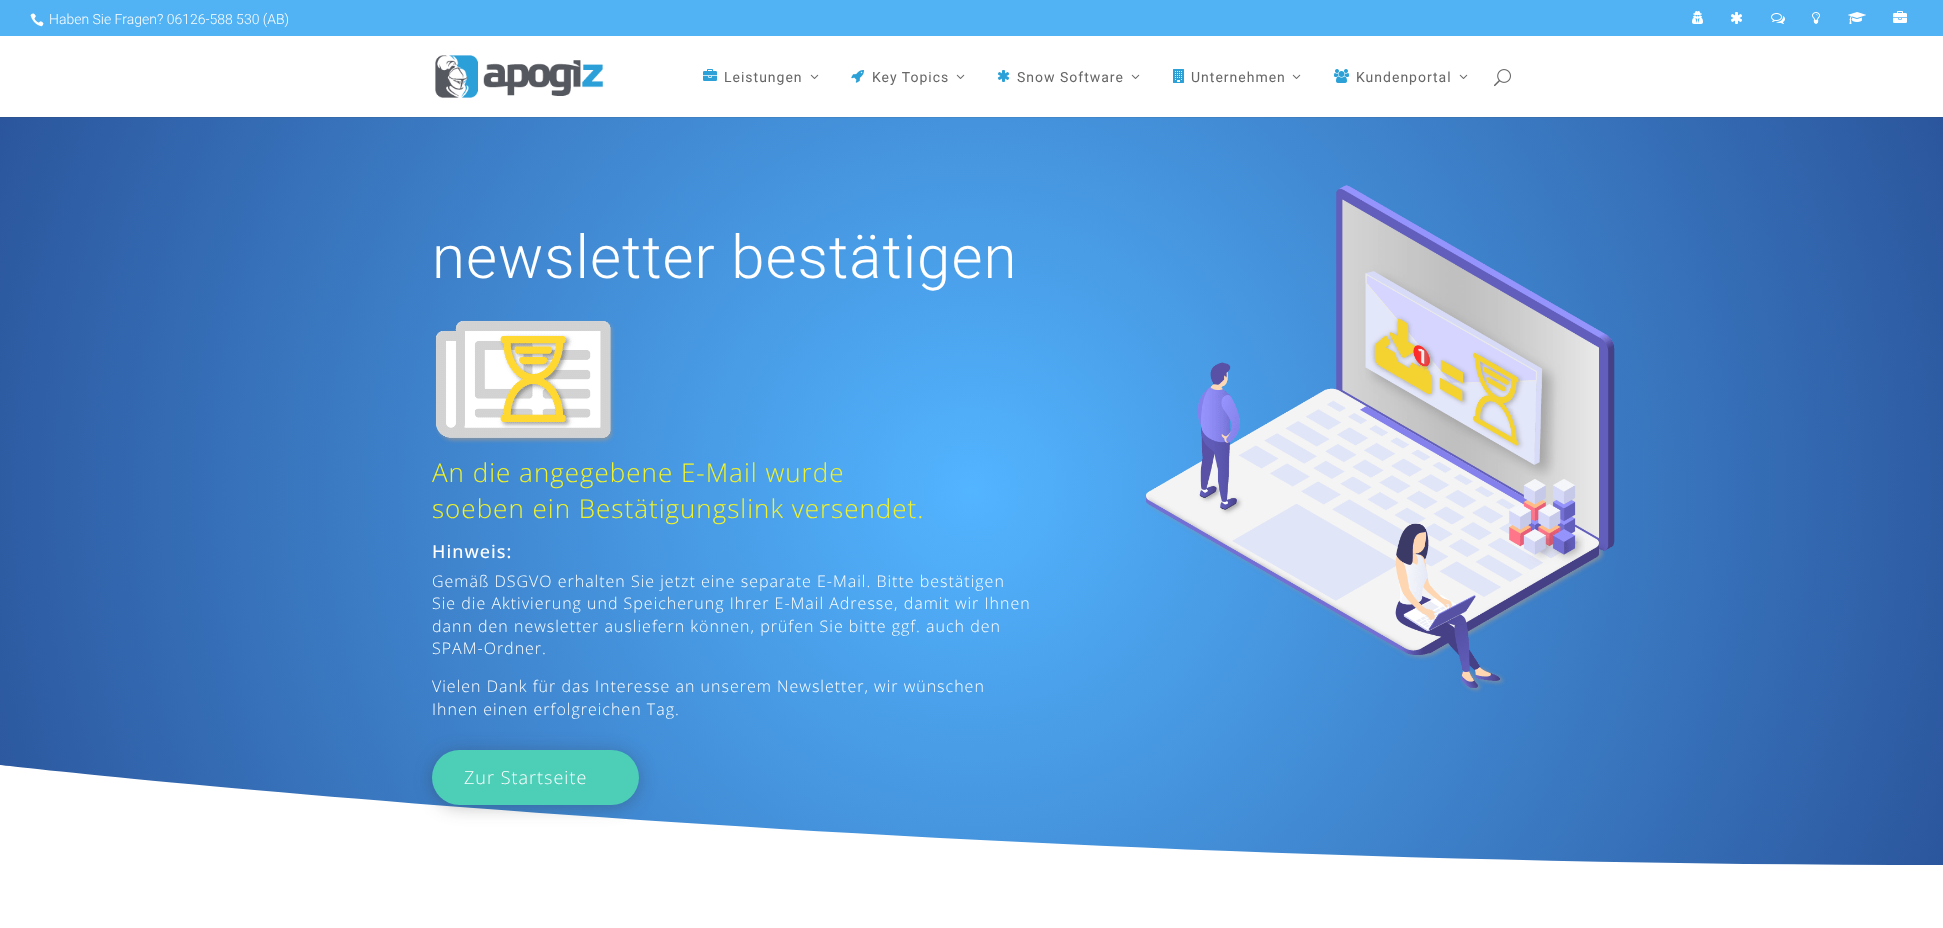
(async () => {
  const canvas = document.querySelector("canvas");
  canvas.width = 1943;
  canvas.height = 928;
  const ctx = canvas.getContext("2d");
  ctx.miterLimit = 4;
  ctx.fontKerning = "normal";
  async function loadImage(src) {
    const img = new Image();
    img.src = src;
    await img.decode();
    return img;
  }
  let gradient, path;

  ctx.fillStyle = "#ffffff";
  ctx.fillRect(0, 0, 1943, 928);
  ctx.fillStyle = "#51b2f4";
  ctx.fillRect(0, 0, 1943, 36);
  ctx.drawImage(await loadImage("img/1.png"), 30, 13, 14, 14);
  ctx.drawImage(await loadImage("img/2.png"), 1692, 11, 11, 13);
  ctx.drawImage(await loadImage("img/3.png"), 1730, 12, 13, 12);
  ctx.drawImage(await loadImage("img/4.png"), 1771, 13, 14, 11);
  ctx.drawImage(await loadImage("img/5.png"), 1812, 12, 8, 12);
  ctx.drawImage(await loadImage("img/6.png"), 1848, 12, 18, 12);
  ctx.drawImage(await loadImage("img/7.png"), 1893, 11, 14, 12);
  ctx.drawImage(await loadImage("img/8.png"), 435, 55, 168, 43);
  ctx.drawImage(await loadImage("img/9.png"), 703, 69, 14, 12);
  ctx.drawImage(await loadImage("img/10.png"), 810, 74, 9, 5);
  ctx.drawImage(await loadImage("img/11.png"), 851, 70, 13, 13);
  ctx.drawImage(await loadImage("img/10.png"), 956, 74, 9, 5);
  ctx.drawImage(await loadImage("img/12.png"), 997, 70, 13, 12);
  ctx.drawImage(await loadImage("img/10.png"), 1131, 74, 9, 5);
  ctx.drawImage(await loadImage("img/13.png"), 1173, 69, 11, 14);
  ctx.drawImage(await loadImage("img/10.png"), 1292, 74, 9, 5);
  ctx.drawImage(await loadImage("img/14.png"), 1334, 69, 15, 14);
  ctx.drawImage(await loadImage("img/10.png"), 1459, 74, 9, 5);
  ctx.drawImage(await loadImage("img/15.png"), 1494, 69, 17, 18);
  gradient = ctx.createRadialGradient(972, 491, 0, 972, 491, 1041);
  gradient.addColorStop(0, "#53b4ff");
  gradient.addColorStop(1, "#2b569d");
  ctx.fillStyle = gradient;
  ctx.fillRect(0, 118, 1943, 747);
  gradient = ctx.createRadialGradient(972, 491, 0, 972, 491, 1041);
  gradient.addColorStop(0, "#4fa7ea");
  gradient.addColorStop(1, "#2b5291");
  ctx.fillStyle = gradient;
  ctx.fillRect(0, 117, 1943, 1);
  ctx.drawImage(await loadImage("img/16.png"), 435, 320, 180, 124);
  ctx.fillStyle = "#ffffff";
  path = new Path2D("M0 865H1943C870 865 0 765 0 765Z");
  ctx.fill(path);
  ctx.fillStyle = "rgba(43, 43, 43, 0.3)";
  ctx.filter = "blur(9px)";
  ctx.beginPath();
  ctx.roundRect(432, 752, 207, 55, 27.5);
  ctx.fill();
  ctx.filter = "none";
  ctx.fillStyle = "#4dceb7";
  ctx.beginPath();
  ctx.roundRect(432, 750, 207, 55, 27.5);
  ctx.fill();
  ctx.drawImage(await loadImage("img/17.png"), 1145, 185, 470, 508);
  ctx.font = "300 14px Roboto";
  ctx.fillStyle = "#ffffff";
  ctx.fillText("Haben Sie Fragen? 06126-588 530 (AB)", 49, 24);
  ctx.letterSpacing = "1px";
  ctx.font = "14px Roboto";
  ctx.fillStyle = "#666666";
  for (const [text, x, y] of [
    ["Leistungen", 724, 82],
    ["Key Topics", 872, 82],
    ["Snow Software", 1017, 82],
    ["Unternehmen", 1191, 82],
    ["Kundenportal", 1356, 82],
  ]) {
    ctx.fillText(text, x, y);
  }
  ctx.font = "300 60px Roboto";
  ctx.fillStyle = "#ffffff";
  ctx.fillText("newsletter bestätigen", 432, 278);
  ctx.font = "300 26px Open Sans";
  ctx.fillStyle = "#f0f22b";
  ctx.fillText("An die angegebene E-Mail wurde", 432, 482);
  ctx.fillText("soeben ein Bestätigungslink versendet.", 432, 518);
  ctx.font = "500 18px Open Sans";
  ctx.fillStyle = "#ffffff";
  ctx.fillText("Hinweis:", 432, 558);
  ctx.font = "300 16px Open Sans";
  for (const [text, x, y] of [
    ["Gemäß DSGVO erhalten Sie jetzt eine separate E-Mail. Bitte bestätigen", 432, 587],
    ["Sie die Aktivierung und Speicherung Ihrer E-Mail Adresse, damit wir Ihnen", 432, 609],
    ["dann den newsletter ausliefern können, prüfen Sie bitte ggf. auch den", 432, 632],
    ["SPAM-Ordner.", 432, 654],
    ["Vielen Dank für das Interesse an unserem Newsletter, wir wünschen", 432, 692],
    ["Ihnen einen erfolgreichen Tag.", 432, 715],
  ]) {
    ctx.fillText(text, x, y);
  }
  ctx.font = "300 18px Open Sans";
  ctx.fillText("Zur Startseite", 464, 784);
})();
